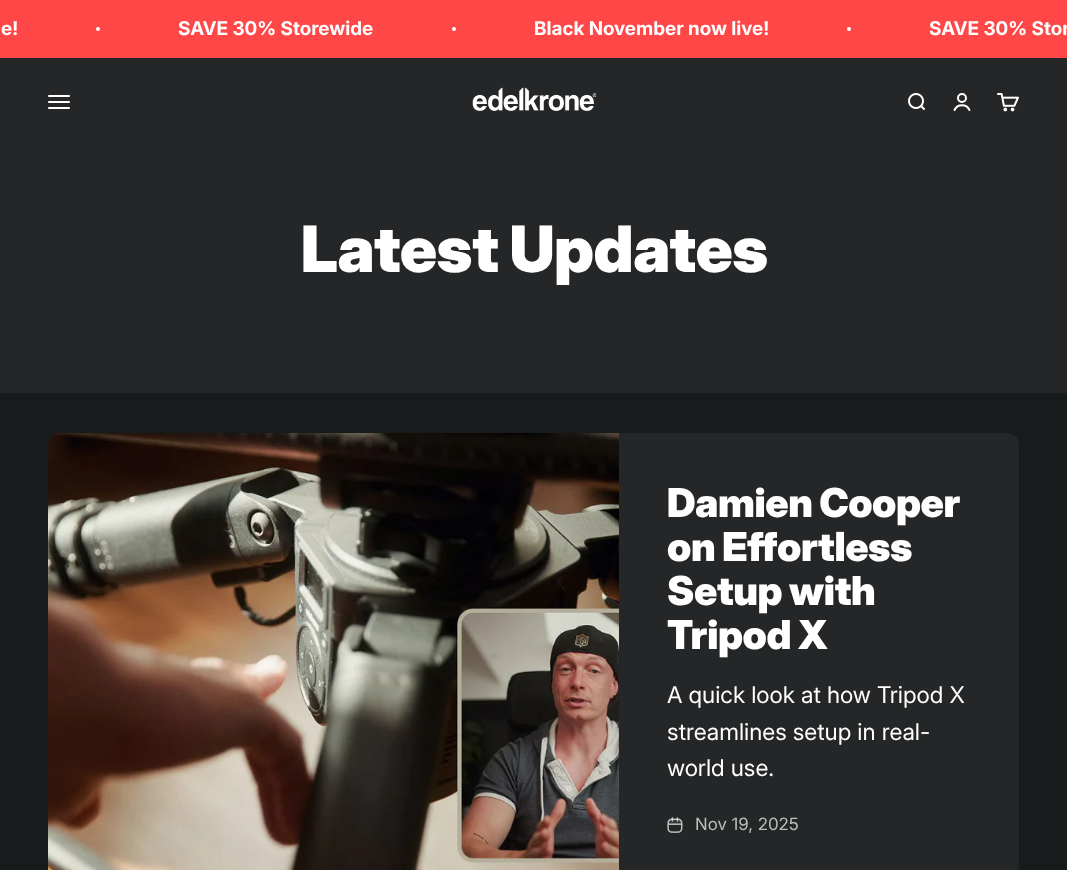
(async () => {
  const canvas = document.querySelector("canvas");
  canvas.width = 1067;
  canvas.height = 870;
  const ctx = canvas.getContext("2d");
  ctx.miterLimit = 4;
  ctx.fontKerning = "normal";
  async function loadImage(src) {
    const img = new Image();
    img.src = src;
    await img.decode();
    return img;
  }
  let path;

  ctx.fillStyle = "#181b1c";
  ctx.fillRect(0, 0, 1067, 870);
  ctx.fillStyle = "#ff4747";
  ctx.fillRect(0, 0, 1067, 58);
  ctx.fillStyle = "#ffffff";
  ctx.beginPath();
  ctx.arc(98, 29, 2, 0, Math.PI * 2);
  ctx.fill();
  ctx.beginPath();
  ctx.arc(454, 29, 2, 0, Math.PI * 2);
  ctx.fill();
  ctx.beginPath();
  ctx.arc(849, 29, 2, 0, Math.PI * 2);
  ctx.fill();
  ctx.fillStyle = "#242627";
  ctx.fillRect(0, 58, 1067, 335);
  ctx.drawImage(await loadImage("img/1.png"), 48, 95, 22, 14);
  ctx.drawImage(await loadImage("img/2.png"), 472, 87, 125, 24);
  ctx.drawImage(await loadImage("img/3.png"), 908, 93, 17, 17);
  ctx.beginPath();
  ctx.arc(962, 98, 4, 0, Math.PI * 2);
  ctx.strokeStyle = "#ffffff";
  ctx.lineWidth = 2;
  ctx.stroke();
  path = new Path2D("M954.5 110C957.5 103.5 966.5 103.5 969.5 110");
  ctx.lineCap = "round";
  ctx.stroke(path);
  ctx.drawImage(await loadImage("img/4.png"), 997, 93, 22, 19);
  ctx.beginPath();
  ctx.roundRect(48, 433, 971, 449, 12);
  ctx.fill();
  ctx.drawImage(await loadImage("img/5.png"), 48, 433, 571, 437);
  ctx.drawImage(await loadImage("img/6.png"), 667, 817, 16, 16);
  ctx.font = "bold 19px Inter";
  ctx.fillStyle = "#ffffff";
  for (const [text, x, y] of [
    ["e!", 1, 35],
    ["SAVE 30% Storewide", 178, 35],
    ["Black November now live!", 534, 35],
    ["SAVE 30% Stor", 929, 35],
  ]) {
    ctx.fillText(text, x, y);
  }
  ctx.letterSpacing = "-0.6px";
  ctx.font = "900 64px Inter";
  ctx.fillText("Latest Updates", 301, 272);
  ctx.letterSpacing = "-0.4px";
  ctx.font = "900 40px Inter";
  for (const [text, x, y] of [
    ["Damien Cooper", 667, 517],
    ["on Effortless", 667, 561],
    ["Setup with", 667, 605],
    ["Tripod X", 667, 649],
  ]) {
    ctx.fillText(text, x, y);
  }
  ctx.letterSpacing = "0px";
  ctx.font = "23px Inter";
  for (const [text, x, y] of [
    ["A quick look at how Tripod X", 667, 703],
    ["streamlines setup in real-", 667, 740],
    ["world use.", 667, 776],
  ]) {
    ctx.fillText(text, x, y);
  }
  ctx.font = "17px 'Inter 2'";
  ctx.fillStyle = "#bdbebe";
  ctx.fillText("Nov 19, 2025", 695, 830);
})();
